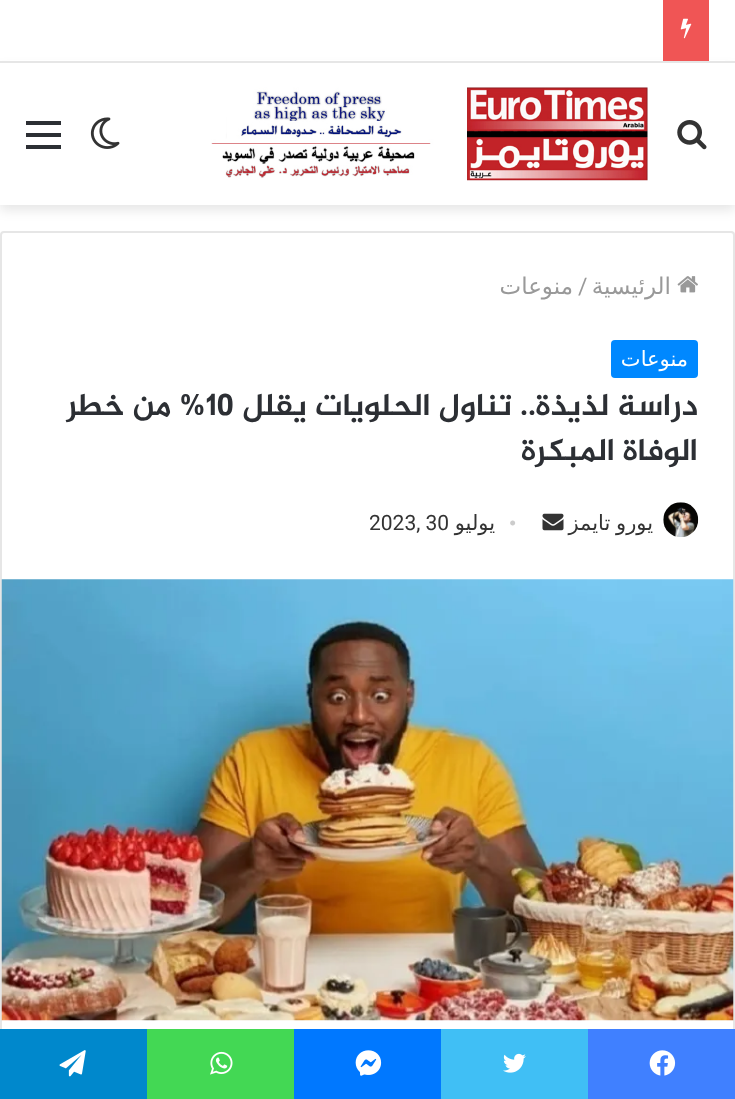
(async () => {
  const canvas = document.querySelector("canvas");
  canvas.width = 735;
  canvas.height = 1099;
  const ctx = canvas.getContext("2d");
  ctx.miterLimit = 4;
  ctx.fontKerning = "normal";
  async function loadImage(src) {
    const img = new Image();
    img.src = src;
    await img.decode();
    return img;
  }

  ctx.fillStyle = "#ffffff";
  ctx.fillRect(0, 0, 735, 1099);
  ctx.fillStyle = "rgba(0, 0, 0, 0.1)";
  ctx.filter = "blur(6px)";
  ctx.beginPath();
  ctx.rect(0, 68, 735, 142);
  ctx.fill();
  ctx.filter = "none";
  for (const [x, y, w, h, color] of [
    [10, 60, 715, 1, "#ffffff"],
    [0, 61, 735, 2, "#e6e6e6"],
    [663, 0, 46, 61, "#f05555"],
  ]) {
    ctx.fillStyle = color;
    ctx.fillRect(x, y, w, h);
  }
  ctx.drawImage(await loadImage("img/1.png"), 680, 18, 12, 21);
  ctx.fillStyle = "#ffffff";
  ctx.fillRect(0, 63, 735, 142);
  ctx.drawImage(await loadImage("img/2.png"), 677, 120, 30, 30);
  ctx.drawImage(await loadImage("img/3.png"), 211, 87, 437, 94);
  ctx.drawImage(await loadImage("img/4.png"), 90, 117, 30, 32);
  for (const [x, y, w, h, color] of [
    [26, 133, 35, 4, "#2c2f34"],
    [26, 121, 35, 4, "#2c2f34"],
    [26, 145, 35, 4, "#2c2f34"],
  ]) {
    ctx.fillStyle = color;
    ctx.fillRect(x, y, w, h);
  }
  ctx.beginPath();
  ctx.roundRect(1, 232, 733, 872, 3);
  ctx.strokeStyle = "#e6e6e6";
  ctx.lineWidth = 2;
  ctx.stroke();
  ctx.drawImage(await loadImage("img/5.png"), 677, 276, 21, 17);
  ctx.fillStyle = "#0088ff";
  ctx.beginPath();
  ctx.roundRect(611, 340, 87, 38, 4);
  ctx.fill();
  ctx.drawImage(await loadImage("img/6.png"), 663, 502, 36, 35);
  ctx.drawImage(await loadImage("img/7.png"), 542, 513, 22, 18);
  ctx.drawImage(await loadImage("img/8.png"), 1, 579, 733, 442);
  ctx.fillStyle = "#4080ff";
  ctx.fillRect(588, 1029, 147, 70);
  ctx.drawImage(await loadImage("img/9.png"), 649, 1050, 27, 26);
  ctx.fillStyle = "#40bff5";
  ctx.fillRect(441, 1029, 147, 70);
  ctx.drawImage(await loadImage("img/10.png"), 503, 1053, 23, 20);
  ctx.fillStyle = "#0078ff";
  ctx.fillRect(294, 1029, 147, 70);
  ctx.drawImage(await loadImage("img/11.png"), 355, 1050, 27, 26);
  ctx.fillStyle = "#43d854";
  ctx.fillRect(147, 1029, 147, 70);
  ctx.drawImage(await loadImage("img/12.png"), 210, 1051, 23, 24);
  ctx.fillStyle = "#0088cc";
  ctx.fillRect(0, 1029, 147, 70);
  ctx.drawImage(await loadImage("img/13.png"), 59, 1050, 27, 27);
  ctx.direction = "rtl";
  ctx.font = "23px DejaVu Sans";
  ctx.fillStyle = "#999999";
  ctx.fillText("الرئيسية", 671, 294);
  ctx.direction = "ltr";
  ctx.font = "23px Roboto";
  ctx.fillText("/", 578, 294);
  ctx.direction = "rtl";
  ctx.font = "23px DejaVu Sans";
  ctx.fillText("منوعات", 573, 294);
  ctx.font = "21px DejaVu Sans";
  ctx.fillStyle = "#ffffff";
  ctx.fillText("منوعات", 688, 366);
  ctx.font = "bold 31.5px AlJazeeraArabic";
  ctx.fillStyle = "#2c2f34";
  ctx.fillText("دراسة لذيذة.. تناول الحلويات يقلل", 698, 415);
  ctx.direction = "ltr";
  ctx.fillText("10", 206, 415);
  ctx.direction = "rtl";
  ctx.fillText("% من خطر", 206, 415);
  ctx.fillText("الوفاة المبكرة", 698, 460);
  ctx.wordSpacing = "-1px";
  ctx.font = "21px DejaVu Sans";
  ctx.fillStyle = "#333333";
  ctx.fillText("يورو تايمز", 653, 530);
  ctx.wordSpacing = "0px";
  ctx.direction = "ltr";
  ctx.font = "21px Liberation Serif";
  ctx.fillStyle = "#cccccc";
  ctx.fillText("•", 509, 530);
  ctx.direction = "rtl";
  ctx.font = "21px DejaVu Sans";
  ctx.fillStyle = "#333333";
  ctx.fillText("يوليو", 495, 530);
  ctx.direction = "ltr";
  ctx.font = "21px Roboto";
  ctx.fillText("2023, 30", 369, 530);
})();
